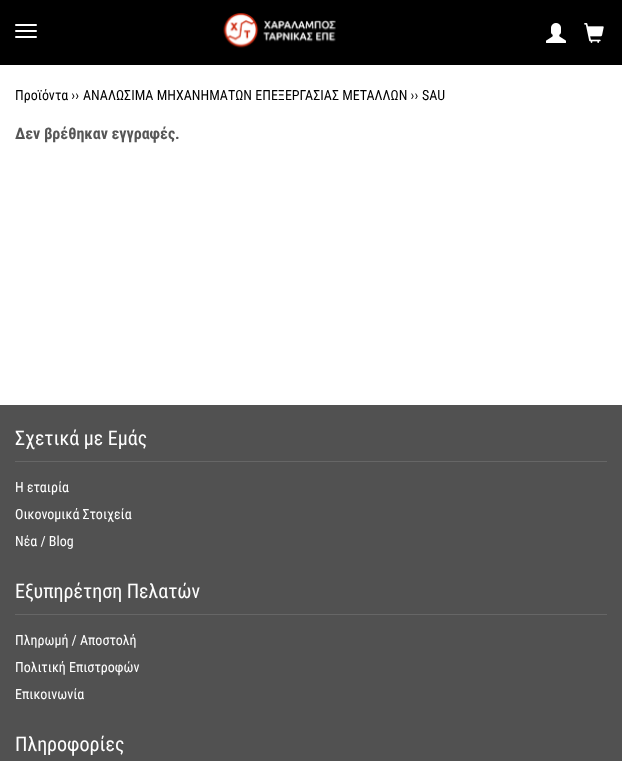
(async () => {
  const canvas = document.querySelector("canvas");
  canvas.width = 622;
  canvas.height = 761;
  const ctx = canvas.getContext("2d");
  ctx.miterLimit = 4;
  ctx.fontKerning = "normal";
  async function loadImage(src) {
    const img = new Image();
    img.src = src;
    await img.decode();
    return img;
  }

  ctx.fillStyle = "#ffffff";
  ctx.fillRect(0, 0, 622, 761);
  ctx.fillStyle = "#000000";
  ctx.fillRect(0, 0, 622, 65);
  ctx.fillStyle = "#ffffff";
  ctx.beginPath();
  ctx.roundRect(15, 24, 22, 2, 1);
  ctx.fill();
  ctx.beginPath();
  ctx.roundRect(15, 30, 22, 2, 1);
  ctx.fill();
  ctx.beginPath();
  ctx.roundRect(15, 36, 22, 2, 1);
  ctx.fill();
  ctx.drawImage(await loadImage("img/1.png"), 223, 13, 113, 35);
  ctx.drawImage(await loadImage("img/2.png"), 546, 23, 20, 20);
  ctx.drawImage(await loadImage("img/3.png"), 584, 23, 20, 20);
  for (const [x, y, w, h, color] of [
    [0, 405, 622, 356, "#515151"],
    [15, 461, 592, 1, "#666666"],
    [15, 614, 592, 1, "#666666"],
  ]) {
    ctx.fillStyle = color;
    ctx.fillRect(x, y, w, h);
  }
  ctx.font = "14px Roboto Condensed";
  ctx.fillStyle = "#000000";
  for (const [text, x, y] of [
    ["Προϊόντα ››", 15, 100],
    ["ΑΝΑΛΩΣΙΜΑ ΜΗΧΑΝΗΜΑΤΩΝ ΕΠΕΞΕΡΓΑΣΙΑΣ ΜΕΤΑΛΛΩΝ ››", 83, 100],
    ["SAU", 422, 100],
  ]) {
    ctx.fillText(text, x, y);
  }
  ctx.font = "bold 16px Roboto Condensed";
  ctx.fillStyle = "#565656";
  ctx.fillText("Δεν βρέθηκαν εγγραφές.", 15, 139);
  ctx.font = "20px Roboto Condensed";
  ctx.fillStyle = "#ffffff";
  ctx.fillText("Σχετικά με Εμάς", 15, 445);
  ctx.font = "14px Roboto Condensed";
  for (const [text, x, y] of [
    ["Η εταιρία", 15, 492],
    ["Οικονομικά Στοιχεία", 15, 519],
    ["Νέα / Blog", 15, 546],
  ]) {
    ctx.fillText(text, x, y);
  }
  ctx.font = "20px Roboto Condensed";
  ctx.fillText("Εξυπηρέτηση Πελατών", 15, 598);
  ctx.font = "14px Roboto Condensed";
  for (const [text, x, y] of [
    ["Πληρωμή / Αποστολή", 15, 645],
    ["Πολιτική Επιστροφών", 15, 672],
    ["Επικοινωνία", 15, 699],
  ]) {
    ctx.fillText(text, x, y);
  }
  ctx.font = "20px Roboto Condensed";
  ctx.fillText("Πληροφορίες", 15, 751);
})();
